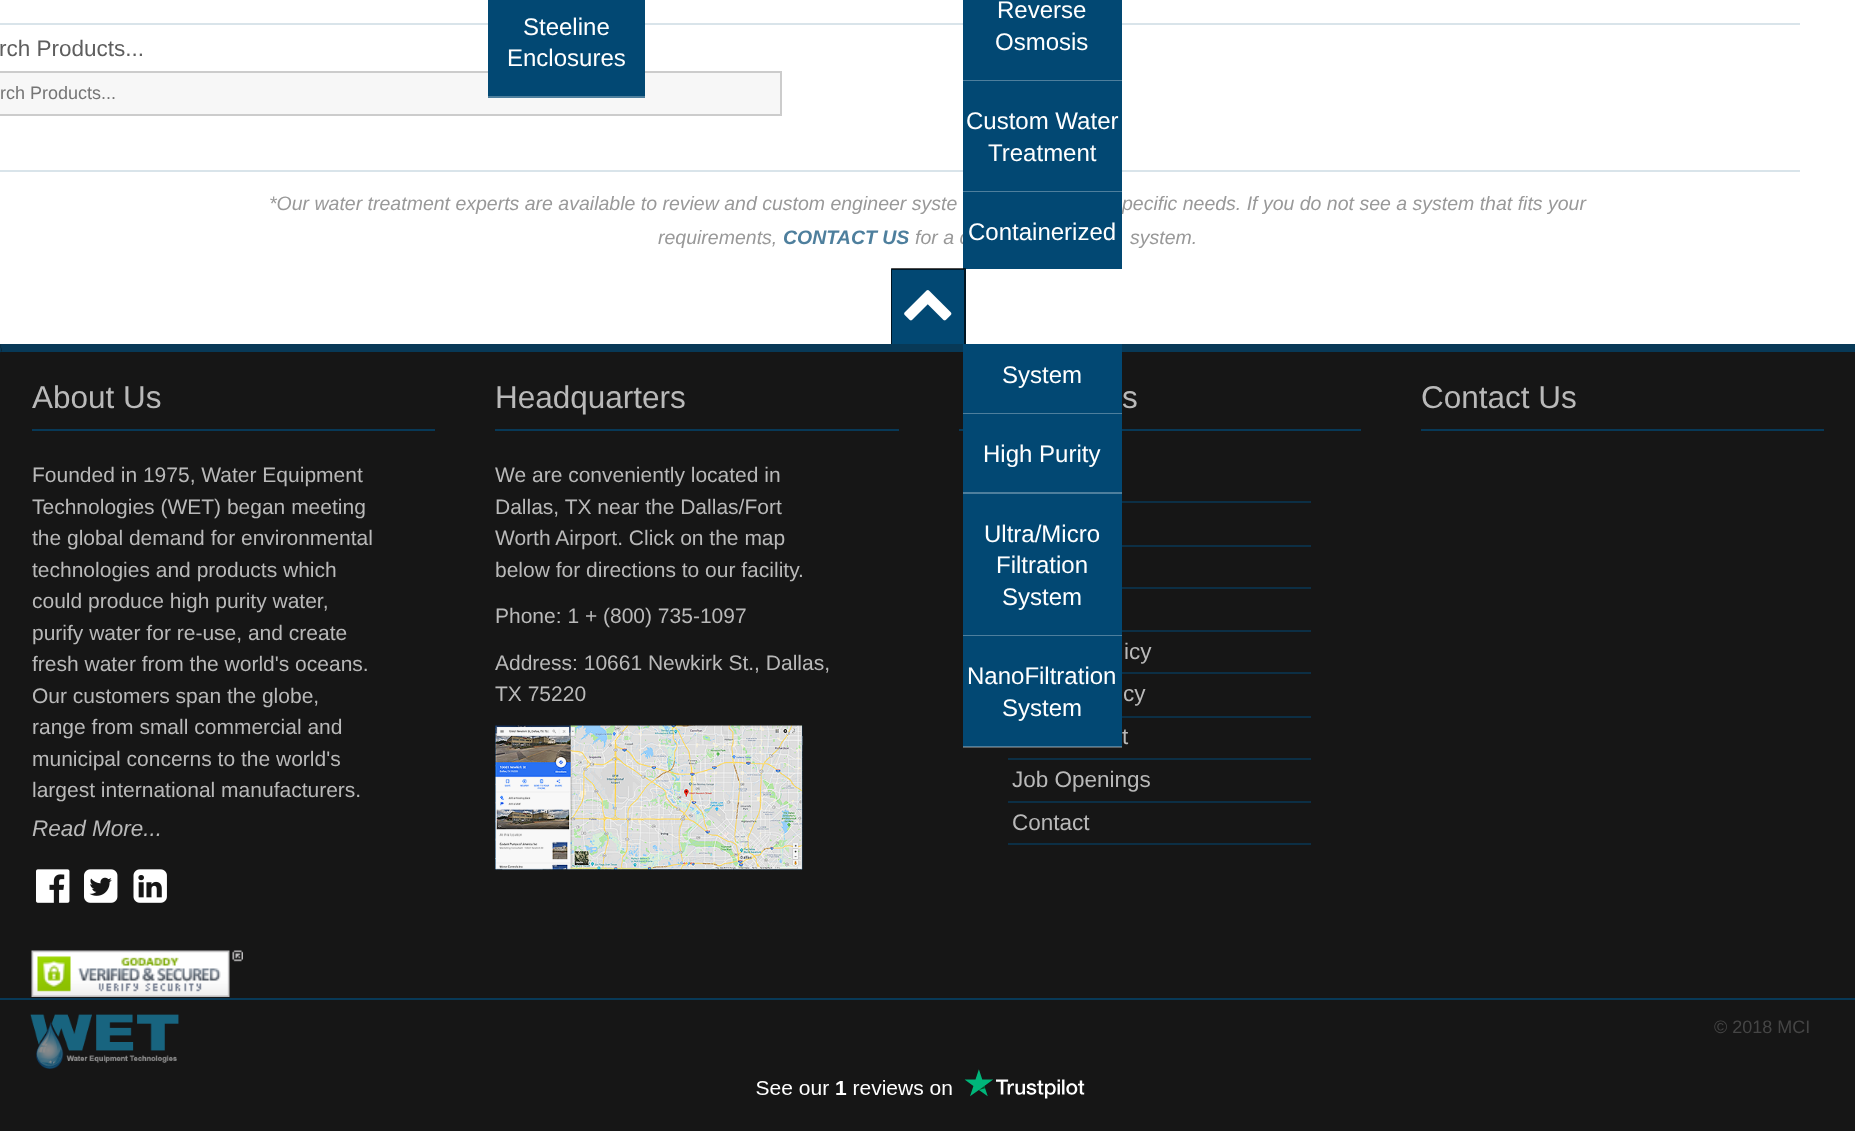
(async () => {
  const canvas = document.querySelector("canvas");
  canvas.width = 1855;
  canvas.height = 1131;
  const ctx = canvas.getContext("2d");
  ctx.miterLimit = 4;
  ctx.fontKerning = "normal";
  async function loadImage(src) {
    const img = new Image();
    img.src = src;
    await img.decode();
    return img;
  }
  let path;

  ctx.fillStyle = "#161616";
  ctx.fillRect(0, 0, 1855, 1131);
  ctx.fillStyle = "#ffffff";
  ctx.fillRect(0, 0, 1855, 269);
  ctx.fillStyle = "#d9e4ea";
  ctx.fillRect(0, 23, 1800, 2);
  ctx.fillStyle = "#f7f7f7";
  ctx.beginPath();
  ctx.rect(-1, 72, 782, 43);
  ctx.fill();
  ctx.strokeStyle = "#cccccc";
  ctx.lineWidth = 2;
  ctx.stroke();
  for (const [x, y, w, h, color] of [
    [488, 0, 157, 96, "#024873"],
    [488, 96, 157, 2, "#4e7f9d"],
    [963, 0, 159, 80, "#024873"],
    [963, 80, 159, 1, "#4e7f9d"],
    [0, 170, 1800, 2, "#d9e4ea"],
    [963, 81, 159, 110, "#024873"],
    [963, 191, 159, 1, "#4e7f9d"],
  ]) {
    ctx.fillStyle = color;
    ctx.fillRect(x, y, w, h);
  }
  ctx.fillStyle = "#083957";
  path = new Path2D("M0 344H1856L1854 351H2Z");
  ctx.fill(path);
  ctx.fillStyle = "rgba(2, 72, 115, 0.7)";
  path = new Path2D("M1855.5 343.5V352.5L1854 351Z");
  ctx.fill(path);
  path = new Path2D("M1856 352H0L2 351H1854Z");
  ctx.fill(path);
  for (const [x, y, w, h, color] of [
    [959, 429, 402, 2, "#083957"],
    [963, 344, 159, 148, "#024873"],
    [963, 413, 159, 1, "rgba(255, 255, 255, 0.3)"],
    [963, 492, 159, 2, "#4e7f9d"],
    [963, 494, 159, 141, "#024873"],
    [963, 635, 159, 1, "#4e7f9d"],
    [963, 636, 159, 111, "#024873"],
    [963, 746, 159, 2, "rgba(255, 255, 255, 0.3)"],
  ]) {
    ctx.fillStyle = color;
    ctx.fillRect(x, y, w, h);
  }
  ctx.fillStyle = "rgba(2, 72, 115, 0.7)";
  path = new Path2D("M0 352.5V343.5L1.5 351Z");
  ctx.fill(path);
  ctx.fillStyle = "#ffffff";
  ctx.fillRect(0, 269, 1855, 75);
  ctx.fillStyle = "#024873";
  ctx.fillRect(891, 269, 75, 75);
  ctx.drawImage(await loadImage("img/1.png"), 904, 290, 48, 31);
  ctx.fillStyle = "#083957";
  ctx.fillRect(32, 429, 403, 2);
  ctx.drawImage(await loadImage("img/2.png"), 36, 869, 34, 34);
  ctx.drawImage(await loadImage("img/3.png"), 84, 869, 34, 34);
  ctx.drawImage(await loadImage("img/4.png"), 133, 869, 34, 34);
  ctx.drawImage(await loadImage("img/5.png"), 31, 950, 212, 47);
  ctx.fillRect(495, 429, 404, 2);
  ctx.drawImage(await loadImage("img/6.png"), 495, 725, 308, 145);
  for (const [x, y, w, h, color] of [
    [1122, 501, 189, 2, "#0c2f45"],
    [1122, 545, 189, 2, "#0c2f45"],
    [1122, 587, 189, 2, "#0c2f45"],
    [1122, 630, 189, 2, "#0c2f45"],
    [1122, 672, 189, 2, "#0c2f45"],
    [1122, 716, 189, 2, "#0c2f45"],
    [1008, 758, 303, 2, "#0c2f45"],
    [1008, 801, 303, 2, "#0c2f45"],
    [1008, 843, 303, 2, "#0c2f45"],
    [1421, 429, 403, 2, "#083957"],
    [0, 998, 1855, 2, "#083957"],
  ]) {
    ctx.fillStyle = color;
    ctx.fillRect(x, y, w, h);
  }
  ctx.drawImage(await loadImage("img/7.png"), 30, 1014, 149, 55);
  ctx.drawImage(await loadImage("img/8.png"), 756, 1069, 329, 30);
  ctx.font = "24px Liberation Sans";
  ctx.fillStyle = "#ffffff";
  for (const [text, x, y] of [
    ["Steeline", 523, 35],
    ["Enclosures", 507, 66],
    ["Reverse", 997, 18],
    ["Osmosis", 995, 50],
    ["Custom Water", 966, 129],
    ["Treatment", 988, 161],
    ["System", 1002, 383],
    ["High Purity", 983, 462],
    ["Ultra/Micro", 984, 542],
    ["Filtration", 996, 573],
    ["System", 1002, 605],
    ["NanoFiltration", 967, 684],
    ["System", 1002, 716],
  ]) {
    ctx.fillText(text, x, y);
  }
  ctx.font = "22.5px Liberation Sans";
  ctx.fillStyle = "#5e5e5e";
  ctx.fillText("rch Products...", -1, 56);
  ctx.font = "18px Liberation Sans";
  ctx.fillStyle = "#757575";
  ctx.fillText("rch Products...", 0, 99);
  ctx.font = "italic 19.5px Liberation Sans";
  ctx.fillStyle = "#999999";
  for (const [text, x, y] of [
    ["*Our water treatment experts are available to review and custom engineer syste", 269, 210],
    ["pecific needs. If you do not see a system that fits your", 1122, 210],
    ["requirements,", 658, 244],
  ]) {
    ctx.fillText(text, x, y);
  }
  ctx.font = "italic bold 19.5px Liberation Sans";
  ctx.fillStyle = "#4e7f9d";
  ctx.fillText("CONTACT US", 783, 244);
  ctx.font = "italic 19.5px Liberation Sans";
  ctx.fillStyle = "#999999";
  ctx.fillText("for a c", 915, 244);
  ctx.fillStyle = "#024873";
  ctx.fillRect(963, 192, 159, 77);
  ctx.font = "24px Liberation Sans";
  ctx.fillStyle = "#ffffff";
  ctx.fillText("Containerized", 968, 240);
  ctx.font = "italic 19.5px Liberation Sans";
  ctx.fillStyle = "#999999";
  ctx.fillText("system.", 1130, 244);
  ctx.fillStyle = "rgba(0, 0, 0, 0.7)";
  path = new Path2D("M891 268H966L964 270H892Z");
  ctx.fill(path);
  path = new Path2D("M966 268V344H964V270Z");
  ctx.fill(path);
  path = new Path2D("M891 344V268L892 270V344Z");
  ctx.fill(path);
  ctx.font = "31.5px Liberation Sans";
  ctx.fillStyle = "#b9b9b9";
  ctx.fillText("About Us", 32, 408);
  ctx.font = "21px Liberation Sans";
  for (const [text, x, y] of [
    ["Founded in 1975, Water Equipment", 32, 482],
    ["Technologies (WET) began meeting", 32, 514],
    ["the global demand for environmental", 32, 545],
    ["technologies and products which", 32, 577],
    ["could produce high purity water,", 32, 608],
    ["purify water for re-use, and create", 32, 640],
    ["fresh water from the world's oceans.", 32, 671],
    ["Our customers span the globe,", 32, 703],
    ["range from small commercial and", 32, 734],
    ["municipal concerns to the world's", 32, 766],
    ["largest international manufacturers.", 32, 797],
  ]) {
    ctx.fillText(text, x, y);
  }
  ctx.font = "italic 22.5px Liberation Sans";
  ctx.fillText("Read More...", 32, 836);
  ctx.font = "31.5px Liberation Sans";
  ctx.fillText("Headquarters", 495, 408);
  ctx.font = "21px Liberation Sans";
  for (const [text, x, y] of [
    ["We are conveniently located in", 495, 482],
    ["Dallas, TX near the Dallas/Fort", 495, 514],
    ["Worth Airport. Click on the map", 495, 545],
    ["below for directions to our facility.", 495, 577],
    ["Phone: 1 + (800) 735-1097", 495, 623],
    ["Address: 10661 Newkirk St., Dallas,", 495, 670],
    ["TX 75220", 495, 701],
  ]) {
    ctx.fillText(text, x, y);
  }
  ctx.font = "31.5px Liberation Sans";
  ctx.fillText("s", 1122, 408);
  ctx.font = "22.5px Liberation Sans";
  for (const [text, x, y] of [
    ["icy", 1124, 659],
    ["cy", 1123, 701],
    ["t", 1122, 744],
    ["Job Openings", 1012, 787],
    ["Contact", 1012, 830],
  ]) {
    ctx.fillText(text, x, y);
  }
  ctx.font = "31.5px Liberation Sans";
  ctx.fillText("Contact Us", 1421, 408);
  ctx.font = "18px Liberation Sans";
  ctx.fillStyle = "#454545";
  ctx.fillText("© 2018 MCI", 1714, 1033);
})();
